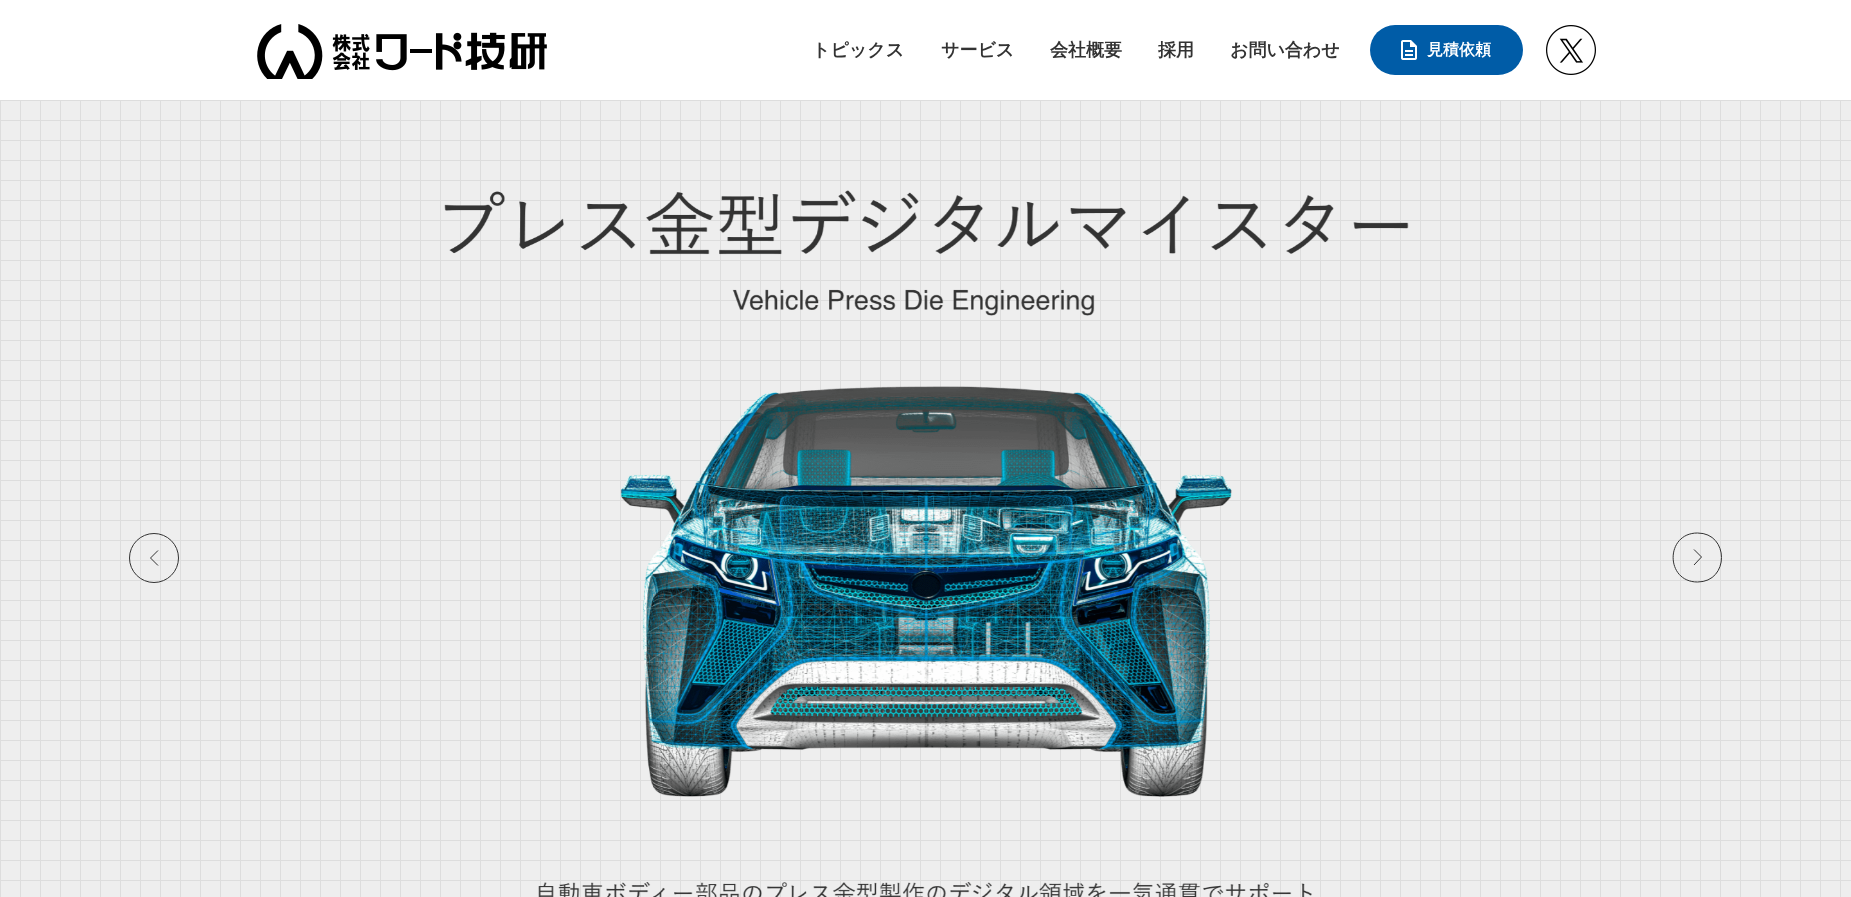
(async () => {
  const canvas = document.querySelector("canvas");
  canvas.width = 1851;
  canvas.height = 897;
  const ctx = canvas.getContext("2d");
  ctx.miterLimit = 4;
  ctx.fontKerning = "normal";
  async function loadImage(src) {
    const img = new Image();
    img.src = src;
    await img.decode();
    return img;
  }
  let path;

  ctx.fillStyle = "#eeeeee";
  ctx.fillRect(0, 0, 1851, 897);
  ctx.fillStyle = "#ffffff";
  ctx.fillRect(0, 0, 1851, 100);
  ctx.fillStyle = "#dddddd";
  ctx.fillRect(0, 100, 1851, 1);
  ctx.drawImage(await loadImage("img/1.png"), 257, 24, 290, 55);
  ctx.fillStyle = "#005ca7";
  ctx.beginPath();
  ctx.roundRect(1370, 25, 153, 50, 25);
  ctx.fill();
  ctx.drawImage(await loadImage("img/2.png"), 1401, 40, 16, 20);
  ctx.drawImage(await loadImage("img/3.png"), 1546, 25, 50, 50);
  ctx.drawImage(await loadImage("img/4.png"), 0, 101, 1851, 796);
  path = new Path2D("M158 550.5L150.5 558L158 565.5");
  ctx.strokeStyle = "#333333";
  ctx.stroke(path);
  ctx.beginPath();
  ctx.arc(154, 558, 24.5, 0, Math.PI * 2);
  ctx.stroke();
  ctx.drawImage(await loadImage("img/5.png"), 444, 190, 965, 707);
  path = new Path2D("M1694 565L1701.5 557L1694 549.5M1697.5 582C1665 582 1665 533 1697.5 533C1729.5 533 1729.5 582 1697.5 582Z");
  ctx.stroke(path);
  ctx.font = "bold 18px WenQuanYi Zen Hei";
  ctx.fillStyle = "#333333";
  for (const [text, x, y] of [
    ["トピックス", 812, 56],
    ["サービス", 941, 56],
    ["会社概要", 1050, 56],
    ["採用", 1158, 56],
    ["お問い合わせ", 1230, 56],
  ]) {
    ctx.fillText(text, x, y);
  }
  ctx.font = "bold 16px WenQuanYi Zen Hei";
  ctx.fillStyle = "#ffffff";
  ctx.fillText("見積依頼", 1427, 55);
})();
